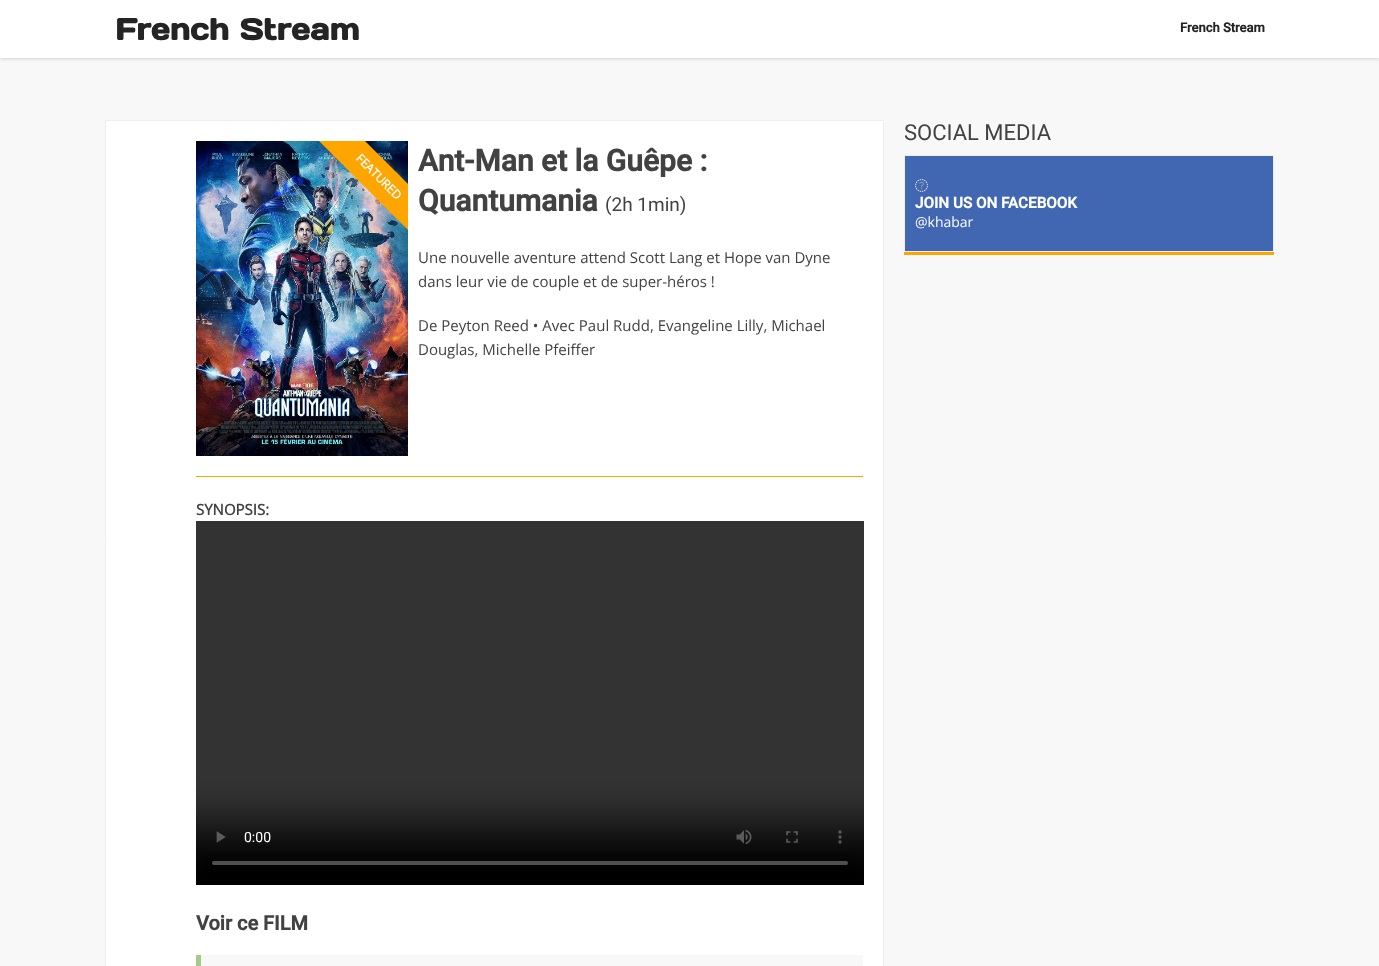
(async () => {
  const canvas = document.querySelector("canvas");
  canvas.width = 1379;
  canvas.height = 966;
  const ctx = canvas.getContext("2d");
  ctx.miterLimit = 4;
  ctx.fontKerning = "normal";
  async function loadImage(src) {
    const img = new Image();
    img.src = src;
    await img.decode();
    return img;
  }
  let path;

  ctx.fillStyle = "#f8f8f8";
  ctx.fillRect(0, 0, 1379, 966);
  ctx.fillStyle = "#bebebe";
  ctx.filter = "blur(2px)";
  ctx.beginPath();
  ctx.rect(0, 0, 1379, 58);
  ctx.fill();
  ctx.filter = "none";
  ctx.fillStyle = "#ffffff";
  ctx.fillRect(0, 0, 1379, 58);
  ctx.beginPath();
  ctx.rect(105.5, 120.5, 778, 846);
  ctx.fill();
  ctx.strokeStyle = "#eeeeee";
  ctx.stroke();
  ctx.fillStyle = "#ffa500";
  ctx.fillRect(196, 476, 667, 1);
  ctx.drawImage(await loadImage("img/1.png"), 196, 141, 212, 315);
  ctx.save();
  ctx.beginPath();
  ctx.rect(196, 141, 212, 315);
  ctx.clip();
  path = new Path2D("M340 116L439 215L416 238L317 139Z");
  ctx.fill(path);
  ctx.restore();
  ctx.drawImage(await loadImage("img/2.png"), 196, 521, 668, 364);
  for (const [x, y, w, h, color] of [
    [201, 955, 662, 11, "#f8f8f8"],
    [196, 955, 5, 11, "#a6ca8a"],
    [904, 252, 370, 3, "#ffa500"],
  ]) {
    ctx.fillStyle = color;
    ctx.fillRect(x, y, w, h);
  }
  ctx.strokeRect(904.5, 155.5, 369, 96);
  ctx.fillStyle = "#4267b2";
  ctx.fillRect(905, 156, 368, 95);
  ctx.drawImage(await loadImage("img/3.png"), 915, 179, 13, 13);
  ctx.font = "bold 30px Days One";
  ctx.fillStyle = "#242424";
  ctx.fillText("French Stream", 115, 40);
  ctx.font = "bold 13px Roboto";
  ctx.fillText("French Stream", 1180, 32);
  ctx.font = "bold 12px Open Sans";
  ctx.fillStyle = "#ffffff";
  ctx.save();
  ctx.translate(355, 159);
  ctx.rotate(45 * Math.PI / 180);
  ctx.fillText("FEATURED", 0, 0);
  ctx.restore();
  ctx.font = "bold 30px Roboto";
  ctx.fillStyle = "#424242";
  ctx.fillText("Ant-Man et la Guêpe :", 418, 171);
  ctx.fillText("Quantumania", 418, 211);
  ctx.font = "19px Roboto";
  ctx.fillText("(2h 1min)", 605, 211);
  ctx.font = "15px Open Sans";
  for (const [text, x, y] of [
    ["Une nouvelle aventure attend Scott Lang et Hope van Dyne", 418, 263],
    ["dans leur vie de couple et de super-héros !", 418, 287],
    ["De Peyton Reed • Avec Paul Rudd, Evangeline Lilly, Michael", 418, 331],
    ["Douglas, Michelle Pfeiffer", 418, 355],
  ]) {
    ctx.fillText(text, x, y);
  }
  ctx.font = "bold 15px Open Sans";
  ctx.fillText("SYNOPSIS:", 196, 515);
  ctx.font = "bold 20px Roboto";
  ctx.fillText("Voir ce FILM", 196, 930);
  ctx.font = "22px Roboto";
  ctx.fillText("SOCIAL MEDIA", 904, 140);
  ctx.font = "bold 15.25px Roboto";
  ctx.fillStyle = "#ffffff";
  ctx.fillText("JOIN US ON FACEBOOK", 915, 208);
  ctx.font = "14px Open Sans";
  ctx.fillText("@khabar", 915, 227);
})();
